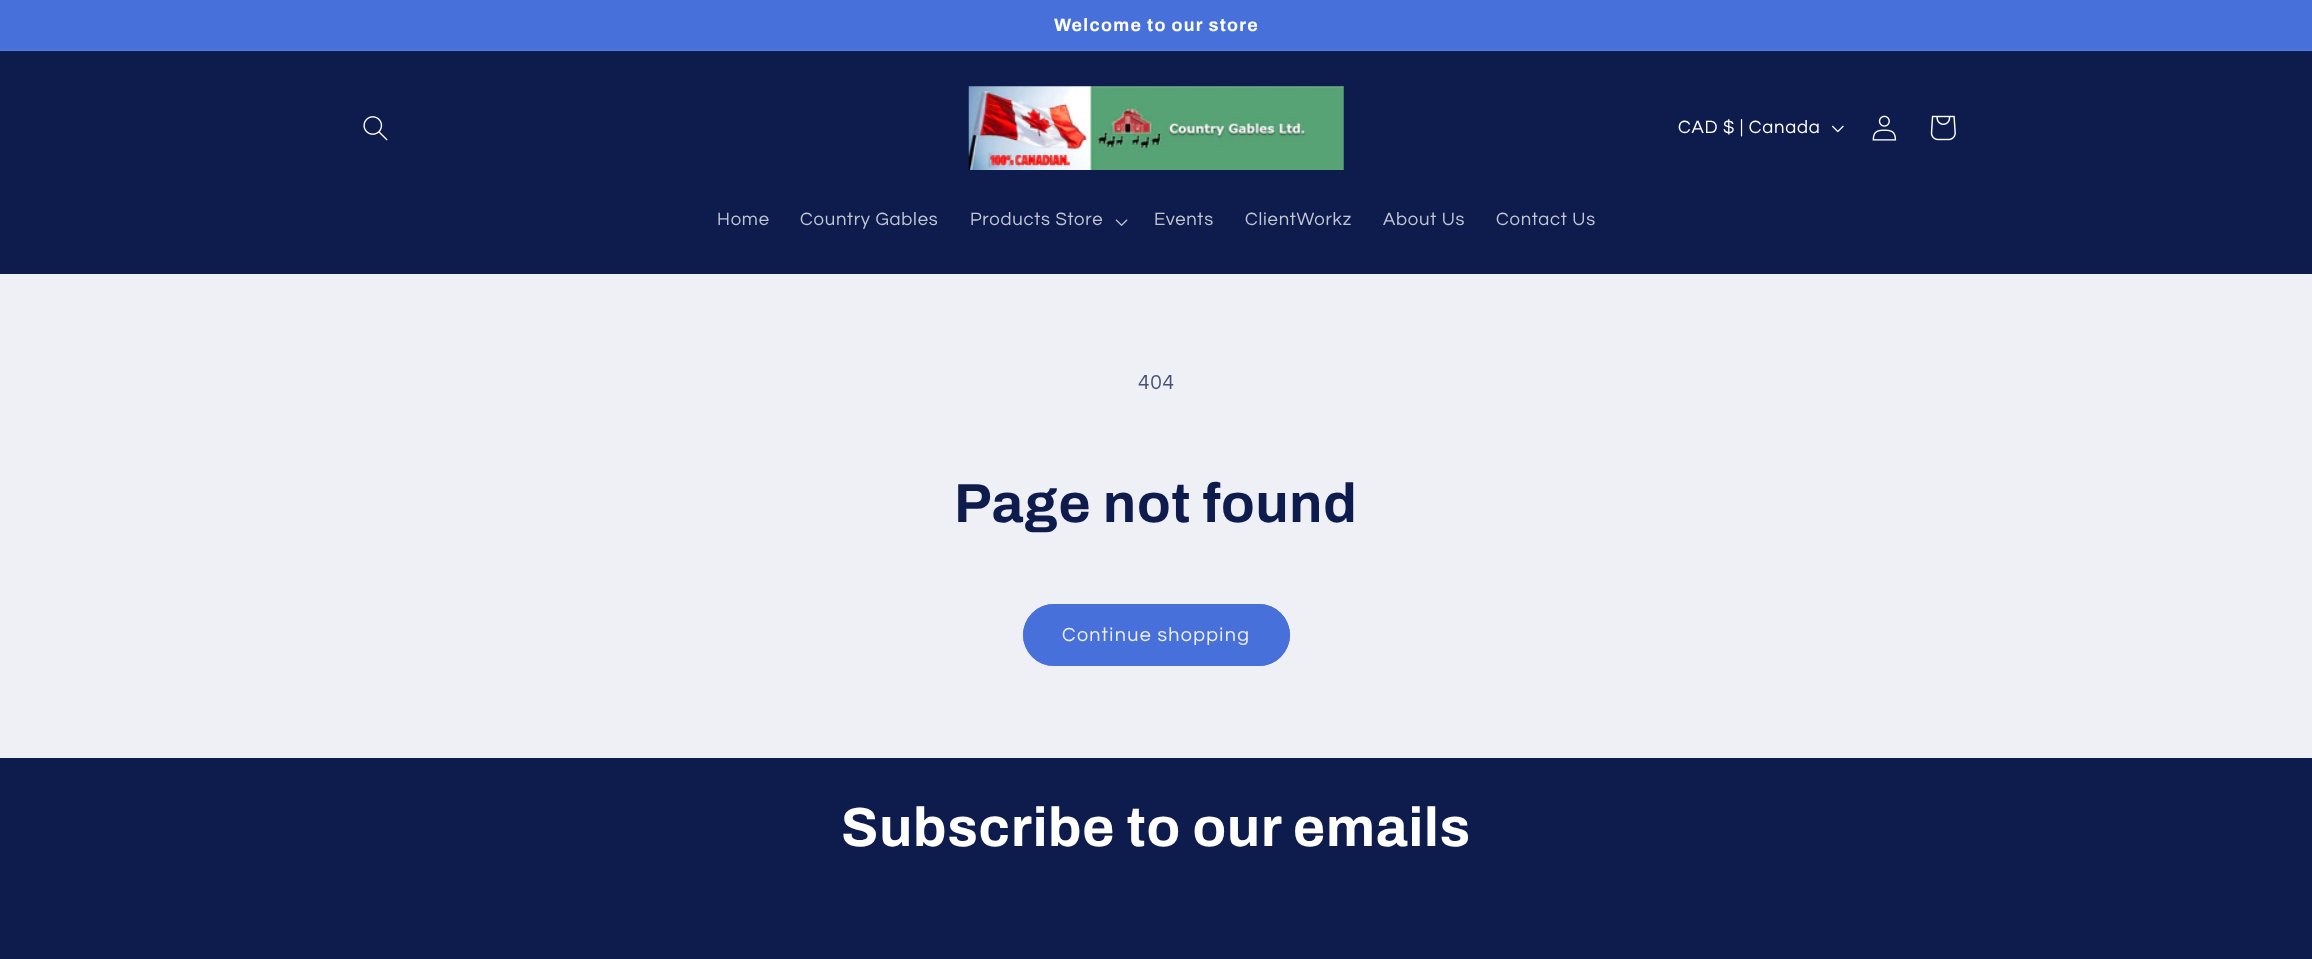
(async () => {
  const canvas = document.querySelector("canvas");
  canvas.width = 2312;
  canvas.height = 959;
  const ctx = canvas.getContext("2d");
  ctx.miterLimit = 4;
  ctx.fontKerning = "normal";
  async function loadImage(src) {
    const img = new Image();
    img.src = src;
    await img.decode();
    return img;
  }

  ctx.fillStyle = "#eff0f5";
  ctx.fillRect(0, 0, 2312, 959);
  for (const [x, y, w, h, color] of [
    [0, 0, 2312, 50, "#4770db"],
    [0, 50, 2312, 1, "#567bde"],
    [0, 51, 2312, 223, "#0e1b4d"],
  ]) {
    ctx.fillStyle = color;
    ctx.fillRect(x, y, w, h);
  }
  ctx.drawImage(await loadImage("img/1.png"), 363, 116, 25, 25);
  ctx.drawImage(await loadImage("img/2.png"), 968, 86, 376, 84);
  ctx.drawImage(await loadImage("img/3.png"), 1831, 125, 13, 8);
  ctx.drawImage(await loadImage("img/4.png"), 1872, 115, 25, 26);
  ctx.drawImage(await loadImage("img/5.png"), 1930, 115, 26, 26);
  ctx.drawImage(await loadImage("img/6.png"), 1115, 219, 13, 7);
  ctx.fillStyle = "#4770db";
  ctx.beginPath();
  ctx.roundRect(1023, 604, 267, 62, 31);
  ctx.fill();
  ctx.beginPath();
  ctx.roundRect(1023.5, 604.5, 266, 61, 30.5);
  ctx.strokeStyle = "#4770db";
  ctx.stroke();
  ctx.fillStyle = "#0e1b4d";
  ctx.fillRect(0, 758, 2312, 201);
  ctx.letterSpacing = "1.3px";
  ctx.font = "bold 17.9px Archivo";
  ctx.fillStyle = "#ffffff";
  ctx.fillText("Welcome to our store", 1054, 31);
  ctx.letterSpacing = "0.75px";
  ctx.font = "18.5px Questrial";
  ctx.fillText("CAD $ | Canada", 1678, 133);
  ctx.fillStyle = "#c3c6d3";
  for (const [text, x, y] of [
    ["Home", 717, 225],
    ["Country Gables", 800, 225],
    ["Products Store", 970, 225],
    ["Events", 1154, 225],
    ["ClientWorkz", 1245, 225],
    ["About Us", 1383, 225],
    ["Contact Us", 1496, 225],
  ]) {
    ctx.fillText(text, x, y);
  }
  ctx.font = "21px Questrial";
  ctx.fillStyle = "#465077";
  ctx.fillText("404", 1138, 389);
  ctx.letterSpacing = "0.8px";
  ctx.font = "bold 55px Archivo";
  ctx.fillStyle = "#0e1b4d";
  ctx.fillText("Page not found", 954, 522);
  ctx.letterSpacing = "1.3px";
  ctx.font = "19.75px Questrial";
  ctx.fillStyle = "#eff0f5";
  ctx.fillText("Continue shopping", 1062, 641);
  ctx.letterSpacing = "0.8px";
  ctx.font = "bold 55px Archivo";
  ctx.fillStyle = "#ffffff";
  ctx.fillText("Subscribe to our emails", 841, 846);
})();
